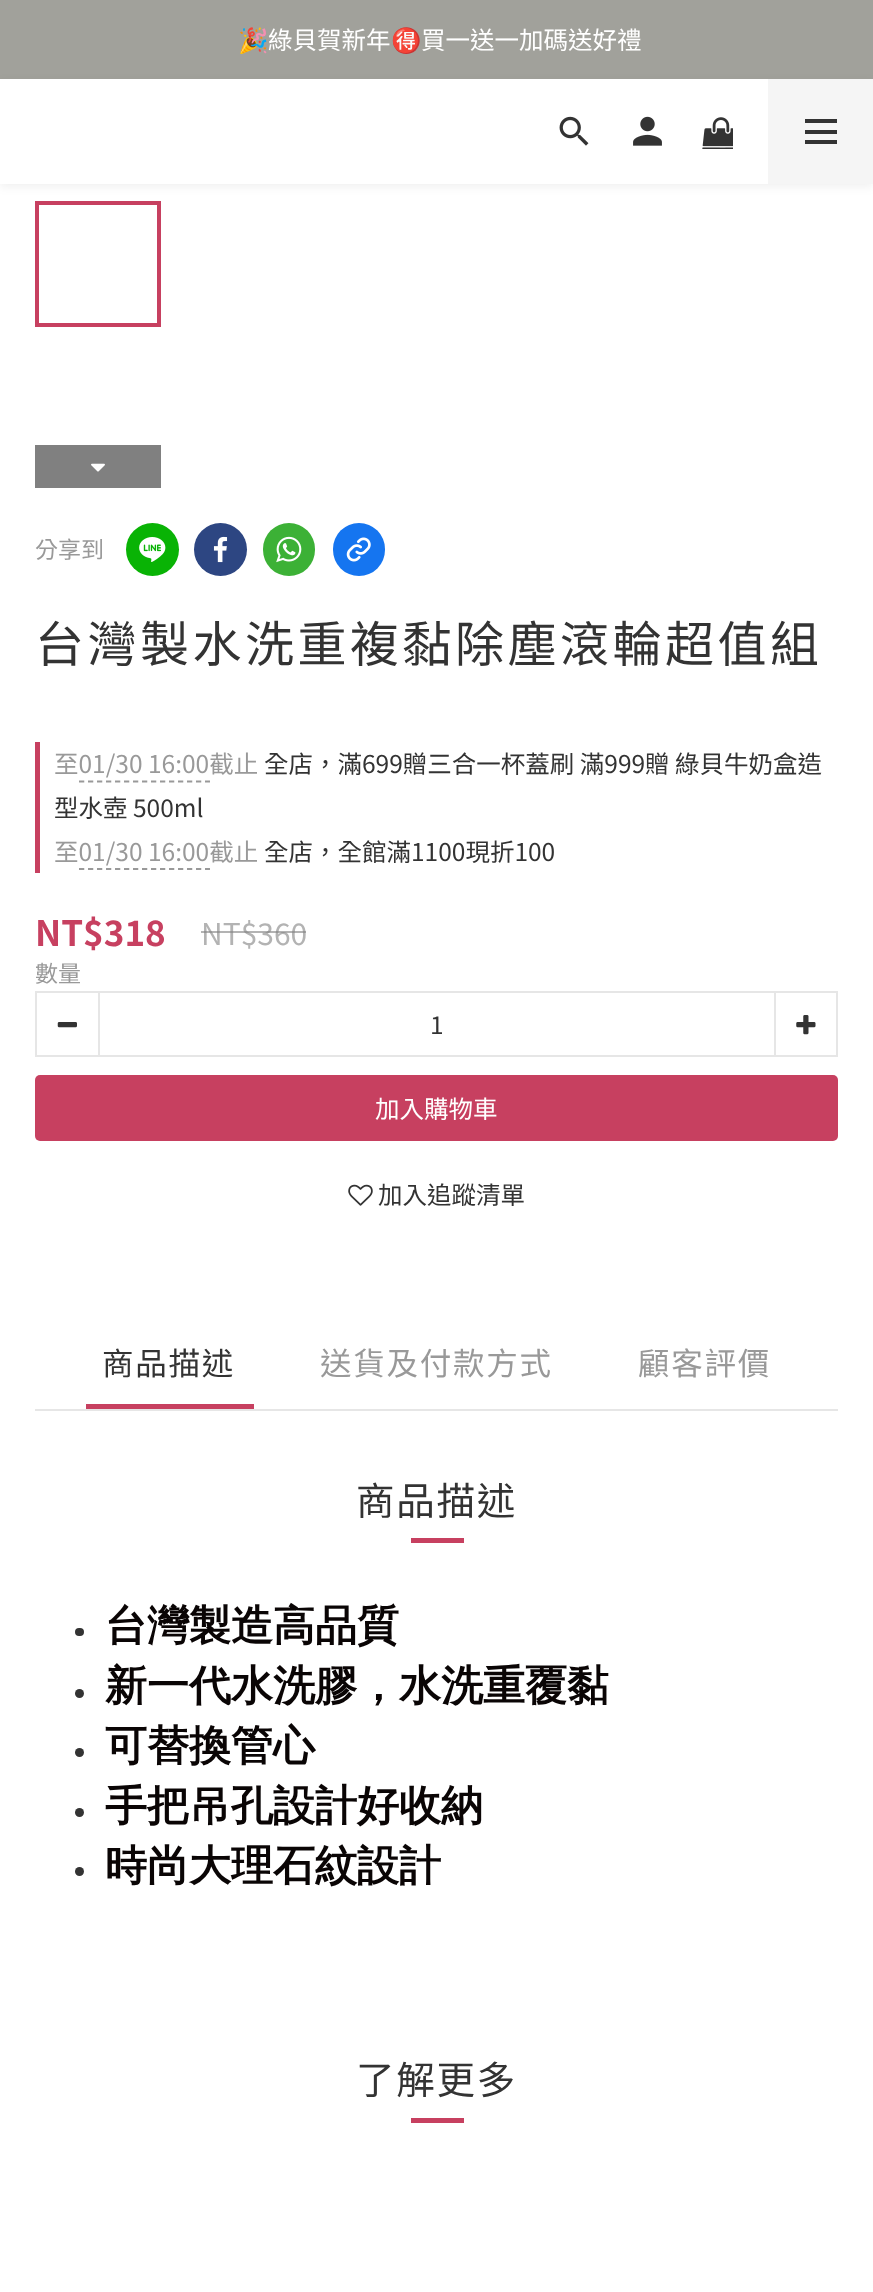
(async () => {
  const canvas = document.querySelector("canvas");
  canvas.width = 873;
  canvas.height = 2292;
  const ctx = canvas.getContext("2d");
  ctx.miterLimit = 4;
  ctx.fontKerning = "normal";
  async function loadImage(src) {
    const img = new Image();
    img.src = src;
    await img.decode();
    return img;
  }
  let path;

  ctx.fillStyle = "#ffffff";
  ctx.fillRect(0, 0, 873, 2292);
  ctx.fillStyle = "#a1a19b";
  ctx.fillRect(0, 0, 873, 79);
  ctx.strokeStyle = "#c74060";
  ctx.lineWidth = 4;
  ctx.strokeRect(37, 203, 122, 122);
  ctx.fillStyle = "rgba(0, 0, 0, 0.06)";
  ctx.filter = "blur(5px)";
  ctx.beginPath();
  ctx.rect(0, 82, 873, 105);
  ctx.fill();
  ctx.filter = "none";
  ctx.fillStyle = "#ffffff";
  ctx.fillRect(0, 79, 768, 105);
  ctx.drawImage(await loadImage("img/1.png"), 559, 116, 30, 30);
  ctx.drawImage(await loadImage("img/2.png"), 633, 116, 29, 30);
  ctx.drawImage(await loadImage("img/3.png"), 702, 117, 31, 32);
  for (const [x, y, w, h, color] of [
    [768, 79, 105, 105, "#f5f5f5"],
    [805, 130, 32, 4, "#333333"],
    [805, 119, 32, 4, "#333333"],
    [805, 140, 32, 4, "#333333"],
    [35, 445, 126, 43, "#808080"],
  ]) {
    ctx.fillStyle = color;
    ctx.fillRect(x, y, w, h);
  }
  ctx.drawImage(await loadImage("img/4.png"), 91, 463, 14, 9);
  ctx.fillStyle = "#09b305";
  ctx.beginPath();
  ctx.arc(152.5, 549.5, 26.5, 0, Math.PI * 2);
  ctx.fill();
  ctx.drawImage(await loadImage("img/5.png"), 139, 537, 27, 25);
  ctx.fillStyle = "#2d4682";
  ctx.beginPath();
  ctx.arc(220.5, 549.5, 26.5, 0, Math.PI * 2);
  ctx.fill();
  ctx.drawImage(await loadImage("img/6.png"), 213, 536, 15, 27);
  ctx.fillStyle = "#3cb136";
  ctx.beginPath();
  ctx.roundRect(263, 523, 52, 53, 26);
  ctx.fill();
  ctx.drawImage(await loadImage("img/7.png"), 276, 536, 26, 27);
  ctx.fillStyle = "#1575f0";
  ctx.beginPath();
  ctx.roundRect(333, 523, 52, 53, 26);
  ctx.fill();
  ctx.drawImage(await loadImage("img/8.png"), 346, 537, 25, 25);
  ctx.fillStyle = "#c74060";
  ctx.fillRect(35, 742, 5, 131);
  path = new Path2D("M79 781.5H210");
  ctx.strokeStyle = "#999999";
  ctx.lineWidth = 1.8;
  ctx.setLineDash([5.25, 3.75]);
  ctx.stroke(path);
  path = new Path2D("M79 869H210");
  ctx.stroke(path);
  ctx.fillStyle = "#e6e6e6";
  ctx.fillRect(98, 991, 677, 2);
  ctx.fillRect(98, 1055, 677, 2);
  ctx.strokeStyle = "#e6e6e6";
  ctx.lineWidth = 2;
  ctx.setLineDash([]);
  ctx.strokeRect(36, 992, 63, 64);
  ctx.drawImage(await loadImage("img/9.png"), 57, 1022, 20, 6);
  ctx.strokeRect(775, 992, 62, 64);
  ctx.drawImage(await loadImage("img/10.png"), 796, 1015, 20, 20);
  ctx.fillStyle = "#c74060";
  ctx.beginPath();
  ctx.roundRect(35, 1075, 803, 66, 5);
  ctx.fill();
  ctx.drawImage(await loadImage("img/11.png"), 348, 1184, 25, 22);
  for (const [x, y, w, h, color] of [
    [35, 1409, 803, 2, "#e6e6e6"],
    [86, 1404, 168, 5, "#c74060"],
    [411, 1538, 53, 5, "#c74060"],
  ]) {
    ctx.fillStyle = color;
    ctx.fillRect(x, y, w, h);
  }
  ctx.fillStyle = "#333333";
  ctx.beginPath();
  ctx.roundRect(75, 1628, 9, 8, 4);
  ctx.fill();
  ctx.beginPath();
  ctx.arc(79.5, 1693.5, 4.5, 0, Math.PI * 2);
  ctx.fill();
  ctx.beginPath();
  ctx.arc(79.5, 1752.5, 4.5, 0, Math.PI * 2);
  ctx.fill();
  ctx.beginPath();
  ctx.arc(79.5, 1812.5, 4.5, 0, Math.PI * 2);
  ctx.fill();
  ctx.beginPath();
  ctx.arc(79.5, 1871.5, 4.5, 0, Math.PI * 2);
  ctx.fill();
  ctx.fillStyle = "#c74060";
  ctx.fillRect(411, 2118, 53, 5);
  ctx.font = "24.5px Noto Color Emoji";
  ctx.fillStyle = "#ffffff";
  ctx.fillText("🎉", 238, 49);
  ctx.font = "24.5px Noto Sans TC";
  ctx.fillText("綠貝賀新年", 268, 49);
  ctx.font = "24.5px Noto Color Emoji";
  ctx.fillText("🉐", 391, 49);
  ctx.font = "24.5px Noto Sans TC";
  ctx.fillText("買一送一加碼送好禮", 421, 49);
  ctx.font = "23px Noto Sans TC";
  ctx.fillStyle = "#999999";
  ctx.fillText("分享到", 35, 558);
  ctx.letterSpacing = "3.5px";
  ctx.font = "49px Noto Sans TC";
  ctx.fillStyle = "#333333";
  ctx.fillText("台灣製水洗重複黏除塵滾輪超值組", 35, 662);
  ctx.letterSpacing = "0px";
  ctx.font = "24.5px Noto Sans TC";
  ctx.fillStyle = "#999999";
  ctx.fillText("至01/30 16:00截止", 54, 773);
  ctx.fillStyle = "#333333";
  ctx.fillText("全店，滿699贈三合一杯蓋刷 滿999贈 綠貝牛奶盒造", 264, 773);
  ctx.fillText("型水壺 500ml", 54, 817);
  ctx.fillStyle = "#999999";
  ctx.fillText("至01/30 16:00截止", 54, 861);
  ctx.fillStyle = "#333333";
  ctx.fillText("全店，全館滿1100現折100", 264, 861);
  ctx.font = "bold 35px Noto Sans TC";
  ctx.fillStyle = "#c74060";
  ctx.fillText("NT$318", 35, 946);
  ctx.font = "30px Noto Sans TC";
  ctx.fillStyle = "#b3b3b3";
  ctx.fillText("NT$360", 201, 945);
  ctx.fillStyle = "rgba(128, 128, 128, 0.6)";
  ctx.fillRect(201, 931, 105, 2);
  ctx.font = "23px Noto Sans TC";
  ctx.fillStyle = "#999999";
  ctx.fillText("數量", 35, 982);
  ctx.font = "24.5px Noto Sans TC";
  ctx.fillStyle = "#333333";
  ctx.fillText("1", 430, 1034);
  ctx.fillStyle = "#ffffff";
  ctx.fillText("加入購物車", 375, 1118);
  ctx.fillStyle = "#333333";
  ctx.fillText("加入追蹤清單", 378, 1204);
  ctx.letterSpacing = "1.75px";
  ctx.font = "31.5px Noto Sans TC";
  ctx.fillText("商品描述", 102, 1375);
  ctx.fillStyle = "#999999";
  ctx.fillText("送貨及付款方式", 320, 1375);
  ctx.fillText("顧客評價", 638, 1375);
  ctx.font = "38.5px Noto Sans TC";
  ctx.fillStyle = "#333333";
  ctx.fillText("商品描述", 356, 1515);
  ctx.letterSpacing = "0px";
  ctx.font = "bold 42px WenQuanYi Zen Hei";
  ctx.fillStyle = "#0a0505";
  for (const [text, x, y] of [
    ["台灣製造高品質", 105, 1640],
    ["新一代水洗膠，水洗重覆黏", 105, 1700],
    ["可替換管心", 105, 1760],
    ["手把吊孔設計好收納", 105, 1820],
    ["時尚大理石紋設計", 105, 1880],
  ]) {
    ctx.fillText(text, x, y);
  }
  ctx.letterSpacing = "1.75px";
  ctx.font = "38.5px Noto Sans TC";
  ctx.fillStyle = "#333333";
  ctx.fillText("了解更多", 356, 2094);
})();
